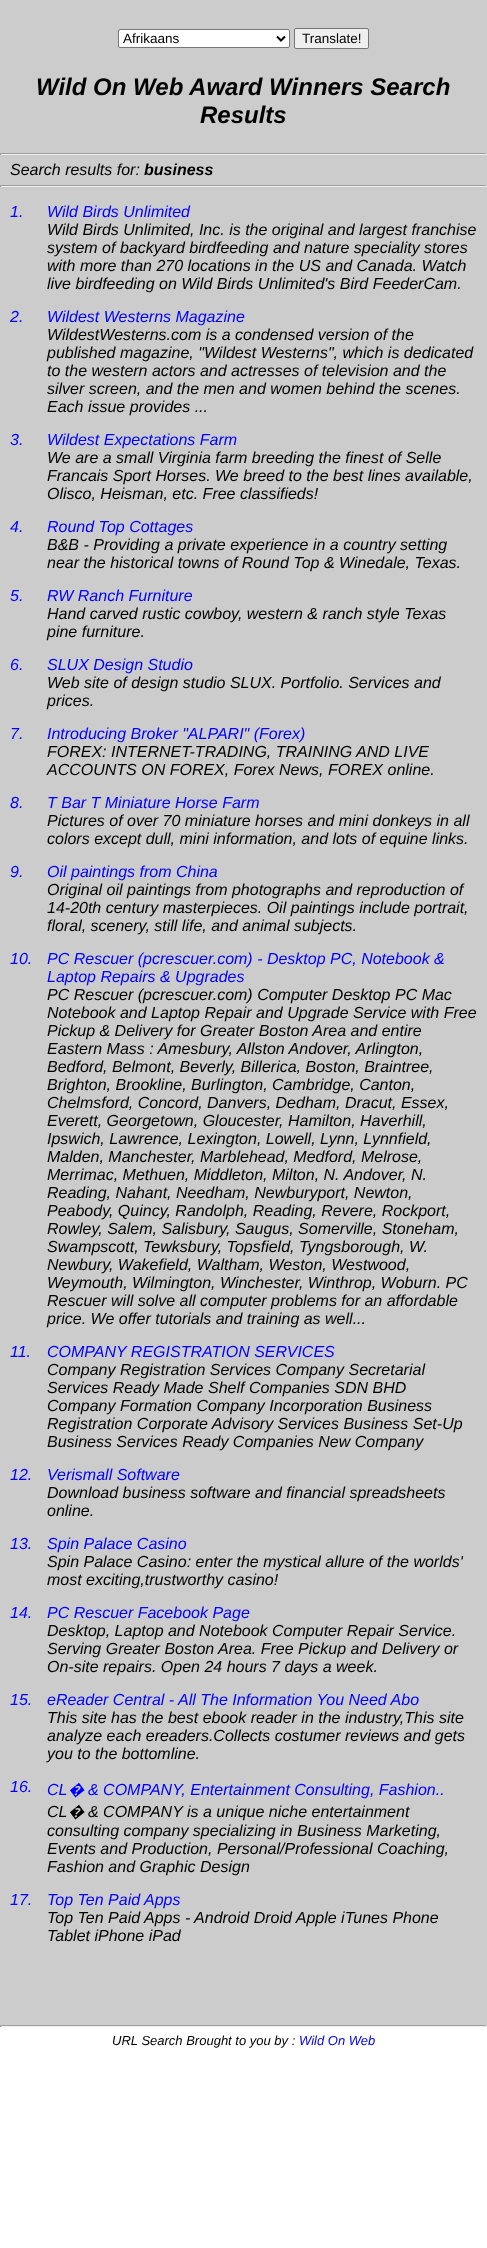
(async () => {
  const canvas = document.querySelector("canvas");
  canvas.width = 487;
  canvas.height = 2248;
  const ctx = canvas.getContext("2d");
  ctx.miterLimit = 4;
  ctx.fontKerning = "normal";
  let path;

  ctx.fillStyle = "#ffffff";
  ctx.fillRect(0, 0, 487, 2248);
  ctx.fillStyle = "#cccccc";
  ctx.fillRect(0, 0, 487, 2025);
  ctx.fillStyle = "#ffffff";
  ctx.beginPath();
  ctx.roundRect(118.5, 29.5, 171, 18, 1.5);
  ctx.fill();
  ctx.strokeStyle = "#767676";
  ctx.stroke();
  path = new Path2D("M277 36.5L281 40.5L285 36.5");
  ctx.strokeStyle = "#000000";
  ctx.lineWidth = 2;
  ctx.stroke(path);
  ctx.fillStyle = "#efefef";
  ctx.beginPath();
  ctx.roundRect(294.5, 28.5, 74, 20, 1.5);
  ctx.fill();
  ctx.strokeStyle = "#767676";
  ctx.lineWidth = 1;
  ctx.stroke();
  for (const [x, y, w, h, color] of [
    [0, 153, 487, 1, "#9f9f9f"],
    [486, 153, 1, 2, "#eeeeee"],
    [0, 154, 487, 1, "#eeeeee"],
    [0, 153, 1, 2, "#9f9f9f"],
    [0, 185, 487, 1, "#9f9f9f"],
    [486, 185, 1, 2, "#eeeeee"],
    [0, 186, 487, 1, "#eeeeee"],
    [0, 185, 1, 2, "#9f9f9f"],
    [0, 2025, 487, 1, "#9f9f9f"],
    [486, 2025, 1, 2, "#eeeeee"],
    [0, 2026, 487, 1, "#eeeeee"],
    [0, 2025, 1, 2, "#9f9f9f"],
  ]) {
    ctx.fillStyle = color;
    ctx.fillRect(x, y, w, h);
  }
  ctx.font = "13.5px Liberation Sans";
  ctx.fillStyle = "#000000";
  ctx.fillText("Afrikaans", 123, 43);
  ctx.fillText("Translate!", 302, 43);
  ctx.font = "italic bold 24px Liberation Sans";
  ctx.fillText("Wild On Web Award Winners Search", 36, 95);
  ctx.fillText("Results", 200, 123);
  ctx.font = "italic 16px Liberation Sans";
  ctx.fillText("Search results for:", 10, 175);
  ctx.font = "italic bold 16px Liberation Sans";
  ctx.fillText("business", 144, 175);
  ctx.font = "italic 16px Liberation Sans";
  ctx.fillStyle = "#0000ff";
  ctx.fillText("1.", 10, 217);
  ctx.fillText("Wild Birds Unlimited", 47, 217);
  ctx.fillStyle = "#000000";
  for (const [text, x, y] of [
    ["Wild Birds Unlimited, Inc. is the original and largest franchise", 47, 235],
    ["system of backyard birdfeeding and nature speciality stores", 47, 253],
    ["with more than 270 locations in the US and Canada. Watch", 47, 271],
    ["live birdfeeding on Wild Birds Unlimited's Bird FeederCam.", 47, 289],
  ]) {
    ctx.fillText(text, x, y);
  }
  ctx.fillStyle = "#0000ff";
  ctx.fillText("2.", 10, 322);
  ctx.fillText("Wildest Westerns Magazine", 47, 322);
  ctx.fillStyle = "#000000";
  for (const [text, x, y] of [
    ["WildestWesterns.com is a condensed version of the", 47, 340],
    ["published magazine, \"Wildest Westerns\", which is dedicated", 47, 358],
    ["to the western actors and actresses of television and the", 47, 376],
    ["silver screen, and the men and women behind the scenes.", 47, 394],
    ["Each issue provides ...", 47, 412],
  ]) {
    ctx.fillText(text, x, y);
  }
  ctx.fillStyle = "#0000ff";
  ctx.fillText("3.", 10, 445);
  ctx.fillText("Wildest Expectations Farm", 47, 445);
  ctx.fillStyle = "#000000";
  for (const [text, x, y] of [
    ["We are a small Virginia farm breeding the finest of Selle", 47, 463],
    ["Francais Sport Horses. We breed to the best lines available,", 47, 481],
    ["Olisco, Heisman, etc. Free classifieds!", 47, 499],
  ]) {
    ctx.fillText(text, x, y);
  }
  ctx.fillStyle = "#0000ff";
  ctx.fillText("4.", 10, 532);
  ctx.fillText("Round Top Cottages", 47, 532);
  ctx.fillStyle = "#000000";
  ctx.fillText("B&B - Providing a private experience in a country setting", 47, 550);
  ctx.fillText("near the historical towns of Round Top & Winedale, Texas.", 47, 568);
  ctx.fillStyle = "#0000ff";
  ctx.fillText("5.", 10, 601);
  ctx.fillText("RW Ranch Furniture", 47, 601);
  ctx.fillStyle = "#000000";
  ctx.fillText("Hand carved rustic cowboy, western & ranch style Texas", 47, 619);
  ctx.fillText("pine furniture.", 47, 637);
  ctx.fillStyle = "#0000ff";
  ctx.fillText("6.", 10, 670);
  ctx.fillText("SLUX Design Studio", 47, 670);
  ctx.fillStyle = "#000000";
  ctx.fillText("Web site of design studio SLUX. Portfolio. Services and", 47, 688);
  ctx.fillText("prices.", 47, 706);
  ctx.fillStyle = "#0000ff";
  ctx.fillText("7.", 10, 739);
  ctx.fillText("Introducing Broker \"ALPARI\" (Forex)", 47, 739);
  ctx.fillStyle = "#000000";
  ctx.fillText("FOREX: INTERNET-TRADING, TRAINING AND LIVE", 47, 757);
  ctx.fillText("ACCOUNTS ON FOREX, Forex News, FOREX online.", 47, 775);
  ctx.fillStyle = "#0000ff";
  ctx.fillText("8.", 10, 808);
  ctx.fillText("T Bar T Miniature Horse Farm", 47, 808);
  ctx.fillStyle = "#000000";
  ctx.fillText("Pictures of over 70 miniature horses and mini donkeys in all", 47, 826);
  ctx.fillText("colors except dull, mini information, and lots of equine links.", 47, 844);
  ctx.fillStyle = "#0000ff";
  ctx.fillText("9.", 10, 877);
  ctx.fillText("Oil paintings from China", 47, 877);
  ctx.fillStyle = "#000000";
  for (const [text, x, y] of [
    ["Original oil paintings from photographs and reproduction of", 47, 895],
    ["14-20th century masterpieces. Oil paintings include portrait,", 47, 913],
    ["floral, scenery, still life, and animal subjects.", 47, 931],
  ]) {
    ctx.fillText(text, x, y);
  }
  ctx.fillStyle = "#0000ff";
  for (const [text, x, y] of [
    ["10.", 10, 964],
    ["PC Rescuer (pcrescuer.com) - Desktop PC, Notebook &", 47, 964],
    ["Laptop Repairs & Upgrades", 47, 982],
  ]) {
    ctx.fillText(text, x, y);
  }
  ctx.fillStyle = "#000000";
  for (const [text, x, y] of [
    ["PC Rescuer (pcrescuer.com) Computer Desktop PC Mac", 47, 1000],
    ["Notebook and Laptop Repair and Upgrade Service with Free", 47, 1018],
    ["Pickup & Delivery for Greater Boston Area and entire", 47, 1036],
    ["Eastern Mass : Amesbury, Allston Andover, Arlington,", 47, 1054],
    ["Bedford, Belmont, Beverly, Billerica, Boston, Braintree,", 47, 1072],
    ["Brighton, Brookline, Burlington, Cambridge, Canton,", 47, 1090],
    ["Chelmsford, Concord, Danvers, Dedham, Dracut, Essex,", 47, 1108],
    ["Everett, Georgetown, Gloucester, Hamilton, Haverhill,", 47, 1126],
    ["Ipswich, Lawrence, Lexington, Lowell, Lynn, Lynnfield,", 47, 1144],
    ["Malden, Manchester, Marblehead, Medford, Melrose,", 47, 1162],
    ["Merrimac, Methuen, Middleton, Milton, N. Andover, N.", 47, 1180],
    ["Reading, Nahant, Needham, Newburyport, Newton,", 47, 1198],
    ["Peabody, Quincy, Randolph, Reading, Revere, Rockport,", 47, 1216],
    ["Rowley, Salem, Salisbury, Saugus, Somerville, Stoneham,", 47, 1234],
    ["Swampscott, Tewksbury, Topsfield, Tyngsborough, W.", 47, 1252],
    ["Newbury, Wakefield, Waltham, Weston, Westwood,", 47, 1270],
    ["Weymouth, Wilmington, Winchester, Winthrop, Woburn. PC", 47, 1288],
    ["Rescuer will solve all computer problems for an affordable", 47, 1306],
    ["price. We offer tutorials and training as well...", 47, 1324],
  ]) {
    ctx.fillText(text, x, y);
  }
  ctx.fillStyle = "#0000ff";
  ctx.fillText("11.", 10, 1357);
  ctx.fillText("COMPANY REGISTRATION SERVICES", 47, 1357);
  ctx.fillStyle = "#000000";
  for (const [text, x, y] of [
    ["Company Registration Services Company Secretarial", 47, 1375],
    ["Services Ready Made Shelf Companies SDN BHD", 47, 1393],
    ["Company Formation Company Incorporation Business", 47, 1411],
    ["Registration Corporate Advisory Services Business Set-Up", 47, 1429],
    ["Business Services Ready Companies New Company", 47, 1447],
  ]) {
    ctx.fillText(text, x, y);
  }
  ctx.fillStyle = "#0000ff";
  ctx.fillText("12.", 10, 1480);
  ctx.fillText("Verismall Software", 47, 1480);
  ctx.fillStyle = "#000000";
  ctx.fillText("Download business software and financial spreadsheets", 47, 1498);
  ctx.fillText("online.", 47, 1516);
  ctx.fillStyle = "#0000ff";
  ctx.fillText("13.", 10, 1549);
  ctx.fillText("Spin Palace Casino", 47, 1549);
  ctx.fillStyle = "#000000";
  ctx.fillText("Spin Palace Casino: enter the mystical allure of the worlds'", 47, 1567);
  ctx.fillText("most exciting,trustworthy casino!", 47, 1585);
  ctx.fillStyle = "#0000ff";
  ctx.fillText("14.", 10, 1618);
  ctx.fillText("PC Rescuer Facebook Page", 47, 1618);
  ctx.fillStyle = "#000000";
  for (const [text, x, y] of [
    ["Desktop, Laptop and Notebook Computer Repair Service.", 47, 1636],
    ["Serving Greater Boston Area. Free Pickup and Delivery or", 47, 1654],
    ["On-site repairs. Open 24 hours 7 days a week.", 47, 1672],
  ]) {
    ctx.fillText(text, x, y);
  }
  ctx.fillStyle = "#0000ff";
  ctx.fillText("15.", 10, 1705);
  ctx.fillText("eReader Central - All The Information You Need Abo", 47, 1705);
  ctx.fillStyle = "#000000";
  for (const [text, x, y] of [
    ["This site has the best ebook reader in the industry,This site", 47, 1723],
    ["analyze each ereaders.Collects costumer reviews and gets", 47, 1741],
    ["you to the bottomline.", 47, 1759],
  ]) {
    ctx.fillText(text, x, y);
  }
  ctx.fillStyle = "#0000ff";
  ctx.fillText("16.", 10, 1792);
  ctx.fillText("CL", 47, 1795);
  ctx.font = "italic 16px Noto Sans";
  ctx.fillText("�", 68, 1795);
  ctx.font = "italic 16px Liberation Sans";
  ctx.fillText("& COMPANY, Entertainment Consulting, Fashion..", 88, 1795);
  ctx.fillStyle = "#000000";
  ctx.fillText("CL", 47, 1817);
  ctx.font = "italic 16px Noto Sans";
  ctx.fillText("�", 68, 1817);
  ctx.font = "italic 16px Liberation Sans";
  for (const [text, x, y] of [
    ["& COMPANY is a unique niche entertainment", 88, 1817],
    ["consulting company specializing in Business Marketing,", 47, 1836],
    ["Events and Production, Personal/Professional Coaching,", 47, 1854],
    ["Fashion and Graphic Design", 47, 1872],
  ]) {
    ctx.fillText(text, x, y);
  }
  ctx.fillStyle = "#0000ff";
  ctx.fillText("17.", 10, 1905);
  ctx.fillText("Top Ten Paid Apps", 47, 1905);
  ctx.fillStyle = "#000000";
  ctx.fillText("Top Ten Paid Apps - Android Droid Apple iTunes Phone", 47, 1923);
  ctx.fillText("Tablet iPhone iPad", 47, 1941);
  ctx.font = "italic 13px Liberation Sans";
  ctx.fillText("URL Search Brought to you by :", 112, 2045);
  ctx.fillStyle = "#0000ff";
  ctx.fillText("Wild On Web", 299, 2045);
})();
